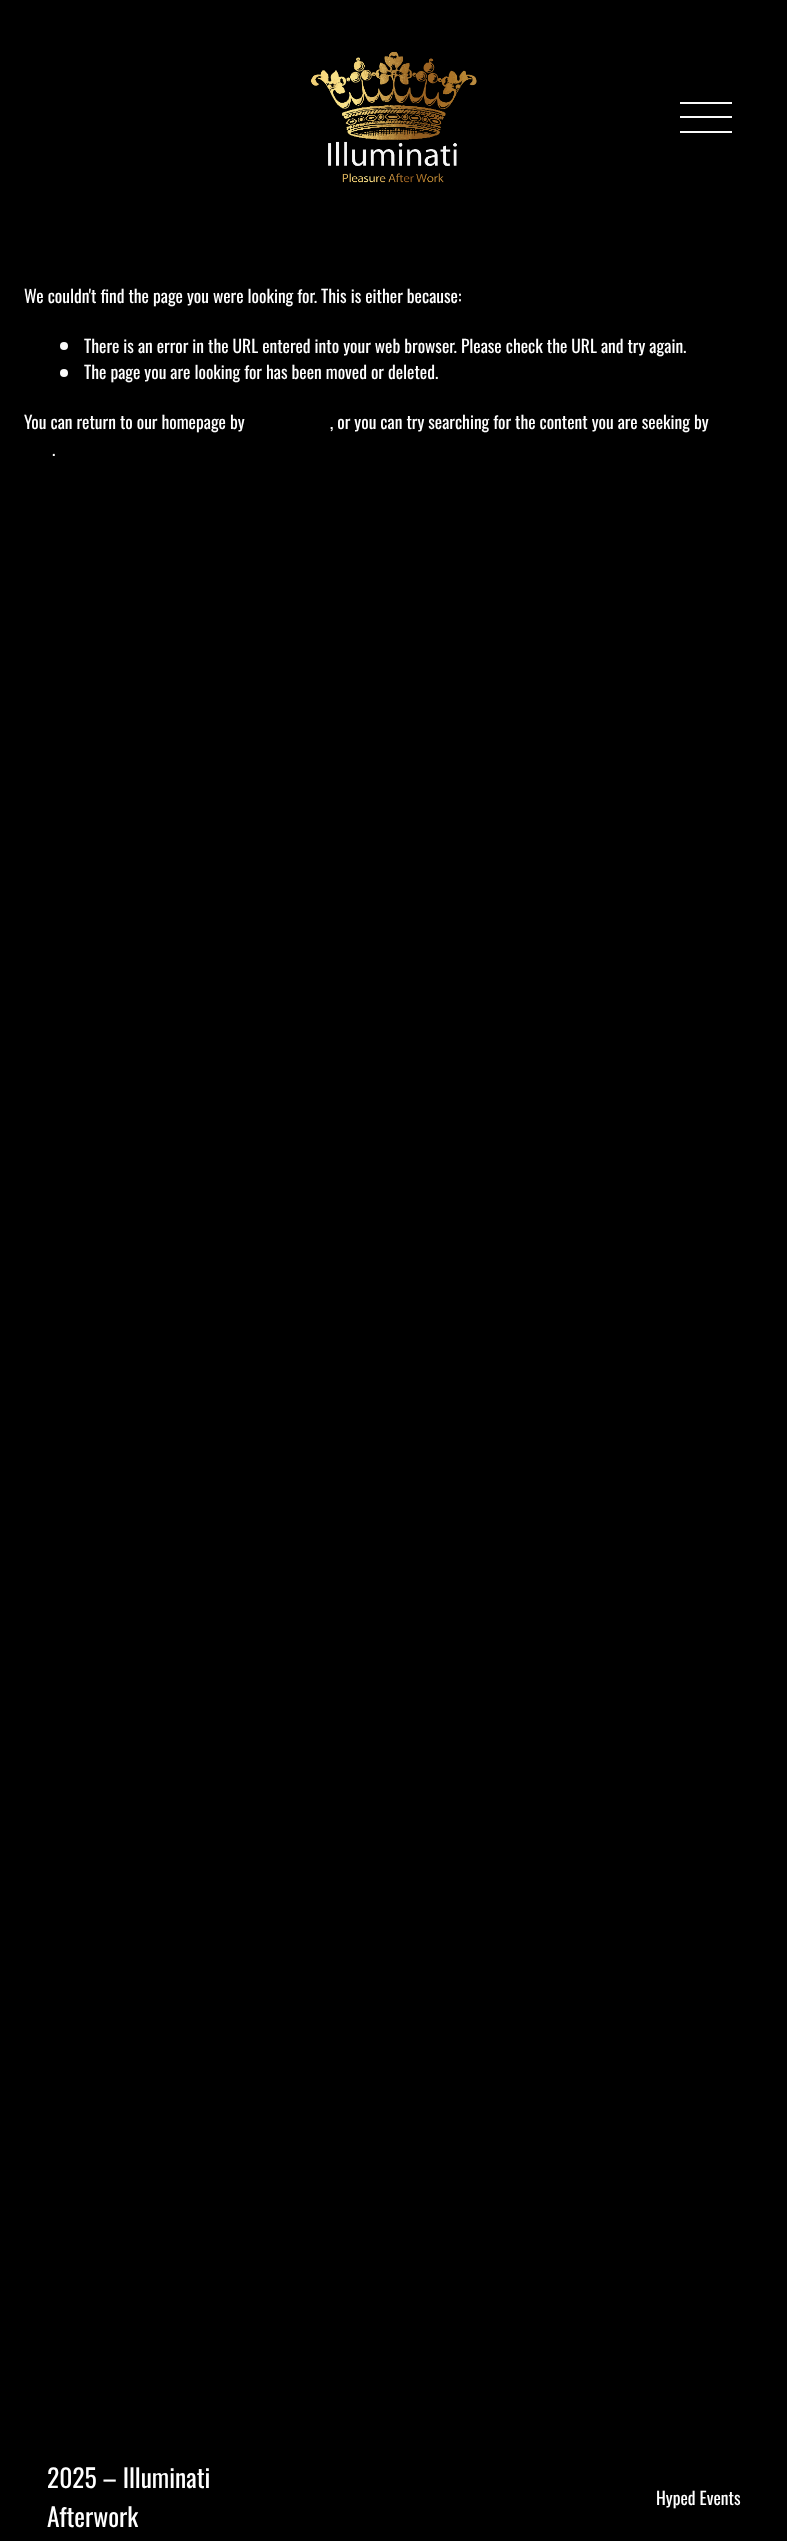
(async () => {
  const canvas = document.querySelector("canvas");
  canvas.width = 787;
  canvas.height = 2541;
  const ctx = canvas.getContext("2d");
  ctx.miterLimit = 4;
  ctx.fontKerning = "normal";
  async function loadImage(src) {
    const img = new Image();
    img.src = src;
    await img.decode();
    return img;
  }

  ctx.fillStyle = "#000000";
  ctx.fillRect(0, 0, 787, 2541);
  ctx.drawImage(await loadImage("img/1.png"), 310, 51, 167, 132);
  for (const [x, y, w, h, color] of [
    [680, 102, 52, 2, "#fafafa"],
    [680, 116, 52, 2, "#fafafa"],
    [680, 131, 52, 2, "#fafafa"],
  ]) {
    ctx.fillStyle = color;
    ctx.fillRect(x, y, w, h);
  }
  ctx.beginPath();
  ctx.arc(64, 346, 4, 0, Math.PI * 2);
  ctx.fill();
  ctx.beginPath();
  ctx.arc(64, 373, 4, 0, Math.PI * 2);
  ctx.fill();
  ctx.font = "17.5px Oswald";
  ctx.fillStyle = "#ffffff";
  for (const [text, x, y] of [
    ["We couldn't find the page you were looking for. This is either because:", 24, 303],
    ["There is an error in the URL entered into your web browser. Please check the URL and try again.", 84, 353],
    ["The page you are looking for has been moved or deleted.", 84, 379],
    ["You can return to our homepage by", 24, 429],
    [", or you can try searching for the content you are seeking by", 330, 429],
    [".", 52, 456],
  ]) {
    ctx.fillText(text, x, y);
  }
  ctx.font = "25.5px Oswald";
  ctx.fillText("2025 – Illuminati", 47, 2488);
  ctx.fillText("Afterwork", 47, 2527);
  ctx.font = "17.5px Oswald";
  ctx.fillText("Hyped Events", 656, 2505);
})();
